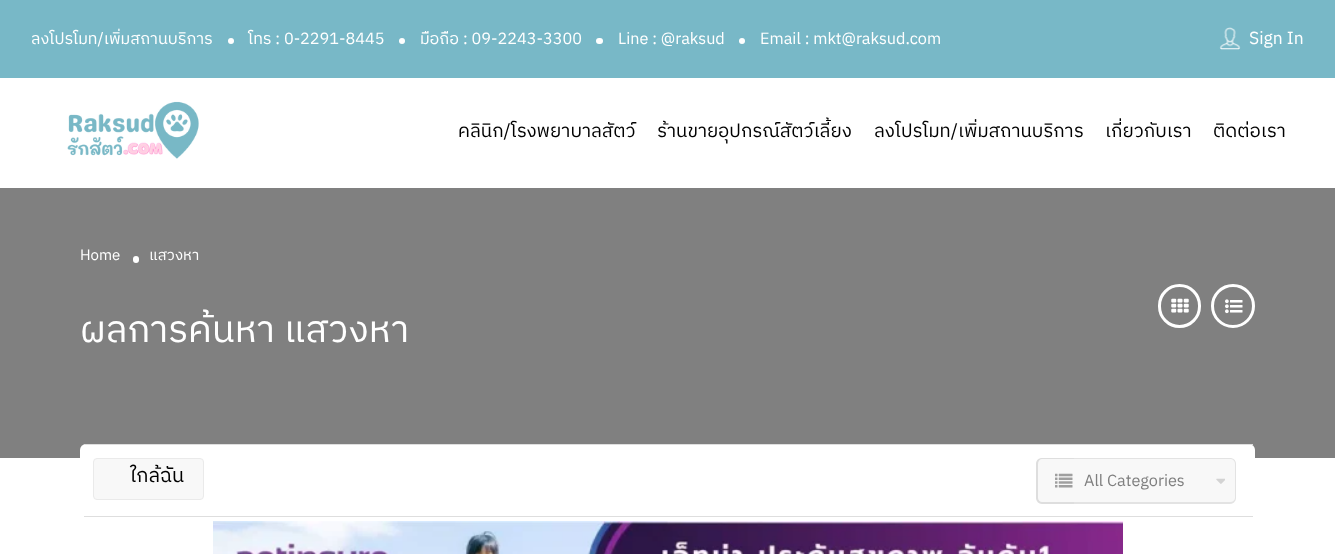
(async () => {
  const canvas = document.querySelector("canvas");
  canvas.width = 1335;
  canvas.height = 554;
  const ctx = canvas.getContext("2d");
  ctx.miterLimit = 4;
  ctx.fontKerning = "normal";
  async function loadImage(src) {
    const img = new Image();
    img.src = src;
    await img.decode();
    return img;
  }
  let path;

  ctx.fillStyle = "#ffffff";
  ctx.fillRect(0, 0, 1335, 554);
  ctx.fillStyle = "#78b8c7";
  ctx.fillRect(0, 0, 1335, 78);
  ctx.fillStyle = "#ffffff";
  ctx.beginPath();
  ctx.arc(231, 41, 3, 0, Math.PI * 2);
  ctx.fill();
  ctx.beginPath();
  ctx.arc(402, 41, 3, 0, Math.PI * 2);
  ctx.fill();
  ctx.beginPath();
  ctx.roundRect(596, 38, 7, 6, 3);
  ctx.fill();
  ctx.beginPath();
  ctx.arc(742, 41, 3, 0, Math.PI * 2);
  ctx.fill();
  ctx.drawImage(await loadImage("img/1.png"), 1219, 27, 22, 23);
  ctx.drawImage(await loadImage("img/2.png"), 67, 101, 132, 58);
  ctx.fillStyle = "#808080";
  ctx.fillRect(0, 188, 1335, 270);
  ctx.fillStyle = "#ffffff";
  ctx.beginPath();
  ctx.roundRect(133, 256, 6, 7, 3);
  ctx.fill();
  ctx.beginPath();
  ctx.roundRect(1159.5, 285.5, 40, 41, 20);
  ctx.strokeStyle = "#ffffff";
  ctx.lineWidth = 3;
  ctx.stroke();
  ctx.drawImage(await loadImage("img/3.png"), 1171, 298, 18, 15);
  ctx.beginPath();
  ctx.arc(1233, 306, 20.5, 0, Math.PI * 2);
  ctx.stroke();
  ctx.drawImage(await loadImage("img/4.png"), 1225, 299, 18, 15);
  ctx.beginPath();
  ctx.roundRect(80, 444, 1175, 74, 6);
  ctx.fill();
  ctx.fillStyle = "#dedede";
  ctx.fillRect(84, 444, 1169, 1);
  ctx.fillRect(84, 516, 1169, 1);
  ctx.fillStyle = "#f8f8f8";
  ctx.beginPath();
  ctx.roundRect(93.5, 458.5, 110, 41, 3.5);
  ctx.fill();
  ctx.strokeStyle = "#eaeaea";
  ctx.lineWidth = 1;
  ctx.stroke();
  ctx.beginPath();
  ctx.roundRect(1036, 458, 38, 46, [6, 0, 0, 6]);
  ctx.fill();
  ctx.fillStyle = "#dedede";
  path = new Path2D("M1042 458H1074V504H1042C1039 504 1036 501 1036 498V464C1036 460 1039 458 1042 458ZM1042 459H1074V502H1042C1040 502 1038 500 1038 498V464C1038 461 1040 459 1042 459Z");
  ctx.fill(path, "evenodd");
  ctx.drawImage(await loadImage("img/5.png"), 1055, 473, 18, 15);
  ctx.fillStyle = "#f8f8f8";
  ctx.beginPath();
  ctx.roundRect(1074, 458, 162, 46, [0, 6, 6, 0]);
  ctx.fill();
  ctx.fillStyle = "#e3e3e3";
  path = new Path2D("M1074 458H1230C1233 458 1236 460 1236 464V498C1236 501 1233 504 1230 504H1074ZM1074 459H1230C1233 459 1235 461 1235 464V498C1235 500 1233 502 1230 502H1074Z");
  ctx.fill(path, "evenodd");
  ctx.drawImage(await loadImage("img/6.png"), 1216, 478, 9, 6);
  ctx.drawImage(await loadImage("img/7.png"), 213, 521, 910, 33);
  ctx.font = "16.25px IBM Plex Sans Thai";
  ctx.fillStyle = "#ffffff";
  for (const [text, x, y] of [
    ["ลงโปรโมท/เพิ่มสถานบริการ", 31, 44],
    ["โทร : 0-2291-8445", 248, 44],
    ["มือถือ : 09-2243-3300", 420, 44],
    ["Line : @raksud", 618, 44],
    ["Email : mkt@raksud.com", 760, 44],
  ]) {
    ctx.fillText(text, x, y);
  }
  ctx.font = "17.5px IBM Plex Sans Thai";
  ctx.fillText("Sign In", 1249, 44);
  ctx.font = "18.75px IBM Plex Sans Thai";
  ctx.fillStyle = "#000000";
  for (const [text, x, y] of [
    ["คลินิก/โรงพยาบาลสัตว์", 458, 137],
    ["ร้านขายอุปกรณ์สัตว์เลี้ยง", 657, 137],
    ["ลงโปรโมท/เพิ่มสถานบริการ", 874, 137],
    ["เกี่ยวกับเรา", 1105, 137],
    ["ติดต่อเรา", 1213, 137],
  ]) {
    ctx.fillText(text, x, y);
  }
  ctx.font = "15px IBM Plex Sans Thai";
  ctx.fillStyle = "#ffffff";
  ctx.fillText("Home", 80, 260);
  ctx.fillText("แสวงหา", 149, 260);
  ctx.font = "37.5px IBM Plex Sans Thai";
  ctx.fillText("ผลการค้นหา แสวงหา", 80, 342);
  ctx.font = "20px IBM Plex Sans Thai";
  ctx.fillStyle = "#000000";
  ctx.fillText("ใกล้ฉัน", 130, 482);
  ctx.font = "16.25px IBM Plex Sans Thai";
  ctx.fillStyle = "#7f7f7f";
  ctx.fillText("All Categories", 1084, 486);
})();
